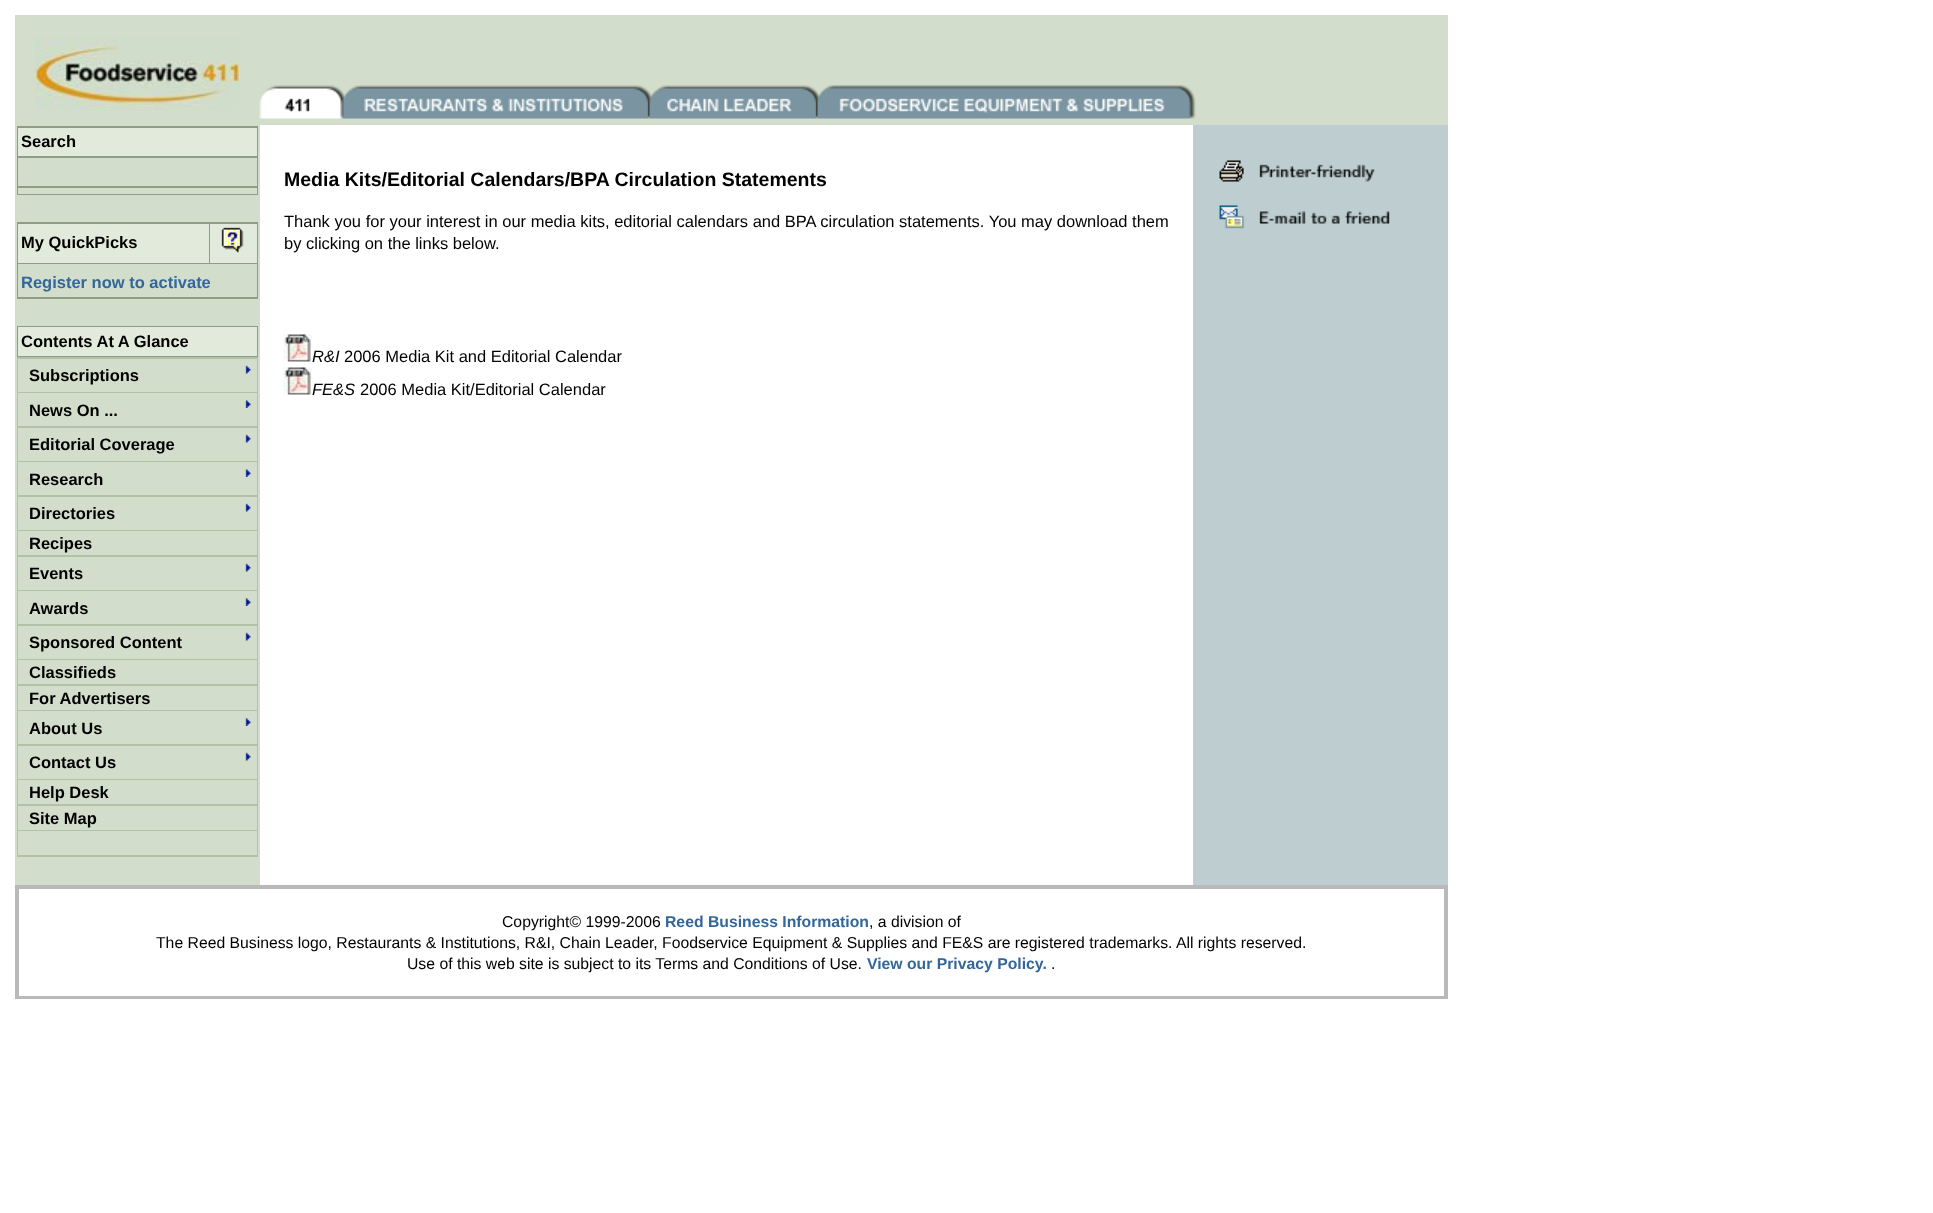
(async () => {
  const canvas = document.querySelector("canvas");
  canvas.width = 1933;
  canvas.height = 1213;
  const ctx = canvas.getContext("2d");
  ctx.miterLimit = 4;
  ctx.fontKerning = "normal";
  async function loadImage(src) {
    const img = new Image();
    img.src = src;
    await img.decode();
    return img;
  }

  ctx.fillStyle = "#ffffff";
  ctx.fillRect(0, 0, 1933, 1213);
  ctx.fillStyle = "#d2ddcb";
  ctx.fillRect(15, 15, 1433, 110);
  ctx.drawImage(await loadImage("img/1.png"), 34, 37, 206, 74);
  ctx.drawImage(await loadImage("img/2.png"), 259, 85, 937, 34);
  for (const [x, y, w, h, color] of [
    [15, 125, 245, 760, "#d2ddcb"],
    [17, 126, 241, 69, "#8f9c86"],
    [18, 128, 239, 28, "#e2eadc"],
    [18, 158, 239, 28, "#d2ddcb"],
    [18, 188, 239, 6, "#d2ddcb"],
    [17, 222, 241, 77, "#8f9c86"],
    [18, 224, 191, 39, "#e2eadc"],
    [210, 224, 47, 39, "#e2eadc"],
  ]) {
    ctx.fillStyle = color;
    ctx.fillRect(x, y, w, h);
  }
  ctx.drawImage(await loadImage("img/3.png"), 221, 227, 23, 26);
  for (const [x, y, w, h, color] of [
    [18, 264, 239, 33, "#d2ddcb"],
    [17, 326, 241, 31, "#8f9c86"],
    [18, 327, 239, 29, "#e2eadc"],
    [17, 357, 241, 500, "#b1c2a6"],
    [18, 359, 239, 33, "#d2ddcb"],
  ]) {
    ctx.fillStyle = color;
    ctx.fillRect(x, y, w, h);
  }
  ctx.drawImage(await loadImage("img/4.png"), 245, 365, 6, 9);
  ctx.fillRect(18, 393, 239, 33);
  ctx.drawImage(await loadImage("img/5.png"), 245, 400, 6, 8);
  ctx.fillRect(18, 428, 239, 33);
  ctx.drawImage(await loadImage("img/4.png"), 245, 434, 6, 9);
  ctx.fillRect(18, 462, 239, 33);
  ctx.drawImage(await loadImage("img/5.png"), 245, 469, 6, 8);
  ctx.fillRect(18, 497, 239, 33);
  ctx.drawImage(await loadImage("img/4.png"), 245, 503, 6, 9);
  ctx.fillRect(18, 531, 239, 24);
  ctx.fillRect(18, 557, 239, 33);
  ctx.drawImage(await loadImage("img/4.png"), 245, 563, 6, 9);
  ctx.fillRect(18, 591, 239, 33);
  ctx.drawImage(await loadImage("img/5.png"), 245, 598, 6, 8);
  ctx.fillRect(18, 626, 239, 33);
  ctx.drawImage(await loadImage("img/4.png"), 245, 632, 6, 9);
  for (const [x, y, w, h, color] of [
    [18, 660, 239, 24, "#d2ddcb"],
    [18, 686, 239, 24, "#d2ddcb"],
    [18, 711, 239, 33, "#d2ddcb"],
  ]) {
    ctx.fillStyle = color;
    ctx.fillRect(x, y, w, h);
  }
  ctx.drawImage(await loadImage("img/5.png"), 245, 718, 6, 8);
  ctx.fillRect(18, 746, 239, 33);
  ctx.drawImage(await loadImage("img/4.png"), 245, 752, 6, 9);
  for (const [x, y, w, h, color] of [
    [18, 780, 239, 24, "#d2ddcb"],
    [18, 806, 239, 24, "#d2ddcb"],
    [18, 831, 239, 24, "#d2ddcb"],
  ]) {
    ctx.fillStyle = color;
    ctx.fillRect(x, y, w, h);
  }
  ctx.drawImage(await loadImage("img/6.png"), 283, 334, 29, 28);
  ctx.drawImage(await loadImage("img/6.png"), 283, 367, 29, 28);
  ctx.fillStyle = "#becdd0";
  ctx.fillRect(1193, 125, 255, 760);
  ctx.drawImage(await loadImage("img/7.png"), 1219, 160, 156, 22);
  ctx.drawImage(await loadImage("img/8.png"), 1219, 205, 171, 24);
  ctx.strokeStyle = "#b9b9b9";
  ctx.lineWidth = 2;
  ctx.strokeRect(16, 886, 1431, 112);
  ctx.strokeRect(18, 888, 1427, 109);
  ctx.font = "bold 16.5px Liberation Sans";
  ctx.fillStyle = "#000000";
  ctx.fillText("Search", 21, 147);
  ctx.fillText("My QuickPicks", 21, 248);
  ctx.fillStyle = "#336699";
  ctx.fillText("Register now to activate", 21, 288);
  ctx.fillStyle = "#000000";
  for (const [text, x, y] of [
    ["Contents At A Glance", 21, 347],
    ["Subscriptions", 29, 381],
    ["News On ...", 29, 416],
    ["Editorial Coverage", 29, 450],
    ["Research", 29, 485],
    ["Directories", 29, 519],
    ["Recipes", 29, 549],
    ["Events", 29, 579],
    ["Awards", 29, 614],
    ["Sponsored Content", 29, 648],
    ["Classifieds", 29, 678],
    ["For Advertisers", 29, 704],
    ["About Us", 29, 734],
    ["Contact Us", 29, 768],
    ["Help Desk", 29, 798],
    ["Site Map", 29, 824],
  ]) {
    ctx.fillText(text, x, y);
  }
  ctx.font = "bold 19.5px Liberation Sans";
  ctx.fillText("Media Kits/Editorial Calendars/BPA Circulation Statements", 284, 186);
  ctx.font = "16.5px Liberation Sans";
  ctx.fillText("Thank you for your interest in our media kits, editorial calendars and BPA circulation statements. You may download them", 284, 227);
  ctx.fillText("by clicking on the links below.", 284, 249);
  ctx.font = "italic 16.5px Liberation Sans";
  ctx.fillText("R&I", 312, 362);
  ctx.font = "16.5px Liberation Sans";
  ctx.fillText("2006 Media Kit and Editorial Calendar", 344, 362);
  ctx.font = "italic 16.5px Liberation Sans";
  ctx.fillText("FE&S", 312, 395);
  ctx.font = "16.5px Liberation Sans";
  ctx.fillText("2006 Media Kit/Editorial Calendar", 360, 395);
  ctx.font = "15.75px Liberation Sans";
  ctx.fillText("Copyright© 1999-2006", 502, 927);
  ctx.font = "bold 15.75px Liberation Sans";
  ctx.fillStyle = "#336699";
  ctx.fillText("Reed Business Information", 665, 927);
  ctx.font = "15.75px Liberation Sans";
  ctx.fillStyle = "#000000";
  for (const [text, x, y] of [
    [", a division of", 869, 927],
    ["The Reed Business logo, Restaurants & Institutions, R&I, Chain Leader, Foodservice Equipment & Supplies and FE&S are registered trademarks. All rights reserved.", 156, 948],
    ["Use of this web site is subject to its Terms and Conditions of Use.", 407, 969],
  ]) {
    ctx.fillText(text, x, y);
  }
  ctx.font = "bold 15.75px Liberation Sans";
  ctx.fillStyle = "#336699";
  ctx.fillText("View our Privacy Policy.", 867, 969);
  ctx.font = "15.75px Liberation Sans";
  ctx.fillStyle = "#000000";
  ctx.fillText(".", 1051, 969);
})();
